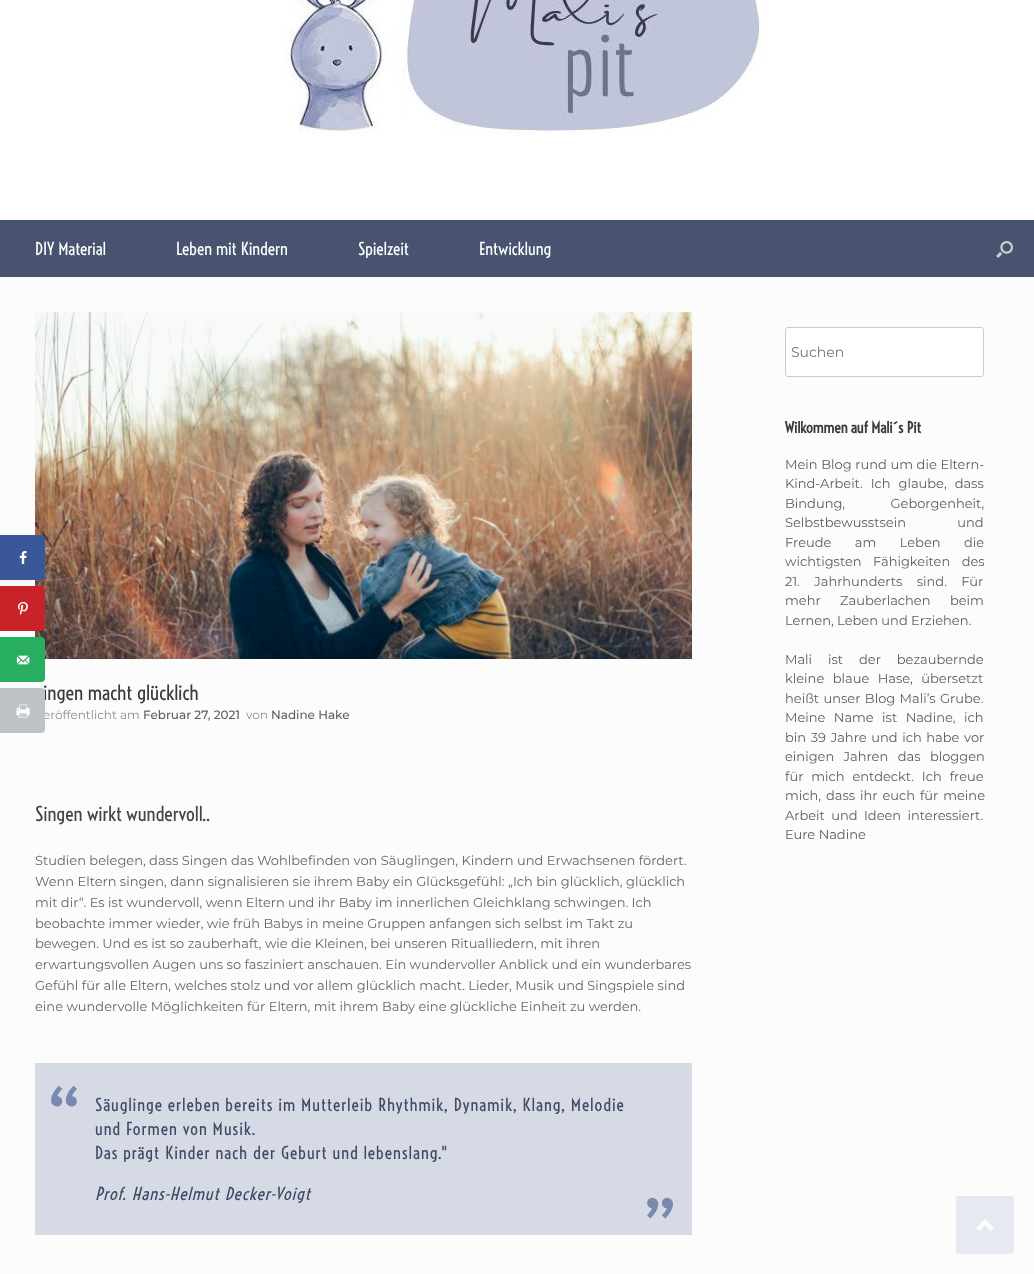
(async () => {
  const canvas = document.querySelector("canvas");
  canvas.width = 1034;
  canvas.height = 1274;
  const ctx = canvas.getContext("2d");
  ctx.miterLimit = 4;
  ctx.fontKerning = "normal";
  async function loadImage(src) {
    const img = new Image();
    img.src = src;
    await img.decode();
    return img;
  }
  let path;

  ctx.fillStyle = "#ffffff";
  ctx.fillRect(0, 0, 1034, 1274);
  ctx.fillStyle = "#fcfcfc";
  ctx.fillRect(0, 277, 1034, 997);
  ctx.drawImage(await loadImage("img/7.png"), 35, 312, 657, 347);
  ctx.fillStyle = "#3a579a";
  ctx.beginPath();
  ctx.roundRect(1, 536, 43, 43, [0, 3, 3, 0]);
  ctx.fill();
  ctx.strokeStyle = "#3a579a";
  ctx.lineWidth = 2;
  ctx.stroke();
  ctx.drawImage(await loadImage("img/1.png"), 19, 551, 8, 13);
  ctx.fillStyle = "#c92228";
  ctx.beginPath();
  ctx.roundRect(1, 587, 43, 43, [0, 3, 3, 0]);
  ctx.fill();
  ctx.strokeStyle = "#c92228";
  ctx.stroke();
  ctx.drawImage(await loadImage("img/2.png"), 18, 602, 10, 13);
  ctx.fillStyle = "#27ae60";
  ctx.beginPath();
  ctx.roundRect(1, 638, 43, 43, [0, 3, 3, 0]);
  ctx.fill();
  ctx.strokeStyle = "#27ae60";
  ctx.stroke();
  ctx.drawImage(await loadImage("img/3.png"), 16, 655, 14, 10);
  ctx.drawImage(await loadImage("img/5.png"), 283, 0, 480, 137);
  ctx.fillStyle = "#47536f";
  ctx.fillRect(0, 220, 1034, 57);
  ctx.drawImage(await loadImage("img/6.png"), 996, 241, 17, 17);
  ctx.fillStyle = "#ffffff";
  ctx.beginPath();
  ctx.roundRect(785.5, 327.5, 198, 49, 2.5);
  ctx.fill();
  ctx.strokeStyle = "#cccccc";
  ctx.lineWidth = 1;
  ctx.stroke();
  ctx.fillStyle = "#d5dae5";
  ctx.fillRect(35, 1063, 657, 172);
  ctx.fillStyle = "#e6e9ef";
  ctx.beginPath();
  ctx.roundRect(956, 1196, 58, 58, 3);
  ctx.fill();
  ctx.fillStyle = "#fdfdfd";
  path = new Path2D("M994 1228L985 1219L976 1228L979 1231L985 1225L991 1231Z");
  ctx.fill(path);
  ctx.font = "17px Voltaire";
  ctx.fillStyle = "#ffffff";
  for (const [text, x, y] of [
    ["DIY Material", 35, 255],
    ["Leben mit Kindern", 176, 255],
    ["Spielzeit", 358, 255],
    ["Entwicklung", 479, 255],
  ]) {
    ctx.fillText(text, x, y);
  }
  ctx.font = "14px Montserrat";
  ctx.fillStyle = "#757575";
  ctx.fillText("Suchen", 791, 357);
  ctx.font = "bold 15px Voltaire";
  ctx.fillStyle = "#3b3b3b";
  ctx.fillText("Wilkommen auf Mali´s Pit", 785, 433);
  ctx.wordSpacing = "0.25px";
  ctx.font = "13px Montserrat";
  ctx.fillStyle = "#5e5e5e";
  ctx.fillText("Mein Blog rund um die Eltern-", 785, 469);
  ctx.wordSpacing = "4.5px";
  ctx.fillText("Kind-Arbeit. Ich glaube, dass", 785, 488);
  ctx.wordSpacing = "42px";
  ctx.fillText("Bindung, Geborgenheit,", 785, 508);
  ctx.wordSpacing = "48px";
  ctx.fillText("Selbstbewusstsein und", 785, 527);
  ctx.wordSpacing = "20px";
  ctx.fillText("Freude am Leben die", 785, 547);
  ctx.wordSpacing = "8px";
  ctx.fillText("wichtigsten Fähigkeiten des", 785, 566);
  ctx.wordSpacing = "11px";
  ctx.fillText("21. Jahrhunderts sind. Für", 785, 586);
  ctx.wordSpacing = "16px";
  ctx.fillText("mehr Zauberlachen beim", 785, 605);
  ctx.wordSpacing = "0px";
  ctx.fillText("Lernen, Leben und Erziehen.", 785, 625);
  ctx.wordSpacing = "12.5px";
  ctx.fillText("Mali ist der bezaubernde", 785, 664);
  ctx.wordSpacing = "5px";
  ctx.fillText("kleine blaue Hase, übersetzt", 785, 683);
  ctx.wordSpacing = "1px";
  ctx.fillText("heißt unser Blog Mali’s Grube.", 785, 703);
  ctx.wordSpacing = "5px";
  ctx.fillText("Meine Name ist Nadine, ich", 785, 722);
  ctx.wordSpacing = "1.25px";
  ctx.fillText("bin 39 Jahre und ich habe vor", 785, 742);
  ctx.wordSpacing = "6px";
  ctx.fillText("einigen Jahren das bloggen", 785, 761);
  ctx.wordSpacing = "4.5px";
  ctx.fillText("für mich entdeckt. Ich freue", 785, 781);
  ctx.wordSpacing = "1.5px";
  ctx.fillText("mich, dass ihr euch für meine", 785, 800);
  ctx.wordSpacing = "3px";
  ctx.fillText("Arbeit und Ideen interessiert.", 785, 820);
  ctx.wordSpacing = "0px";
  ctx.fillText("Eure Nadine", 785, 839);
  ctx.font = "20px Voltaire";
  ctx.fillStyle = "#3b3b3b";
  ctx.fillText("ingen macht glücklich", 43, 700);
  ctx.font = "12px Montserrat";
  ctx.fillStyle = "#8f8f8f";
  ctx.fillText("eröffentlicht am", 43, 719);
  ctx.fillStyle = "#bdc3c7";
  ctx.beginPath();
  ctx.roundRect(1, 689, 43, 43, [0, 3, 3, 0]);
  ctx.fill();
  ctx.strokeStyle = "#bdc3c7";
  ctx.lineWidth = 2;
  ctx.stroke();
  ctx.drawImage(await loadImage("img/4.png"), 16, 704, 14, 14);
  ctx.font = "500 12px Montserrat";
  ctx.fillStyle = "#5e5e5e";
  ctx.fillText("Februar 27, 2021", 143, 719);
  ctx.font = "12px Montserrat";
  ctx.fillStyle = "#8f8f8f";
  ctx.fillText("von", 246, 719);
  ctx.font = "500 12px Montserrat";
  ctx.fillStyle = "#5e5e5e";
  ctx.fillText("Nadine Hake", 271, 719);
  ctx.font = "19.5px Voltaire";
  ctx.fillStyle = "#444444";
  ctx.fillText("Singen wirkt wundervoll..", 35, 821);
  ctx.font = "13px Montserrat";
  ctx.fillStyle = "#666666";
  for (const [text, x, y] of [
    ["Studien belegen, dass Singen das Wohlbefinden von Säuglingen, Kindern und Erwachsenen fördert.", 35, 865],
    ["Wenn Eltern singen, dann signalisieren sie ihrem Baby ein Glücksgefühl: „Ich bin glücklich, glücklich", 35, 886],
    ["mit dir“. Es ist wundervoll, wenn Eltern und ihr Baby im innerlichen Gleichklang schwingen. Ich", 35, 907],
    ["beobachte immer wieder, wie früh Babys in meine Gruppen anfangen sich selbst im Takt zu", 35, 928],
    ["bewegen. Und es ist so zauberhaft, wie die Kleinen, bei unseren Ritualliedern, mit ihren", 35, 948],
    ["erwartungsvollen Augen uns so fasziniert anschauen. Ein wundervoller Anblick und ein wunderbares", 35, 969],
    ["Gefühl für alle Eltern, welches stolz und vor allem glücklich macht. Lieder, Musik und Singspiele sind", 35, 990],
    ["eine wundervolle Möglichkeiten für Eltern, mit ihrem Baby eine glückliche Einheit zu werden.", 35, 1011],
  ]) {
    ctx.fillText(text, x, y);
  }
  ctx.letterSpacing = "1px";
  ctx.font = "80px Voltaire";
  ctx.fillStyle = "#7a8aaf";
  ctx.fillText("“", 45, 1148);
  ctx.font = "17px Voltaire";
  ctx.fillStyle = "#3d4965";
  for (const [text, x, y] of [
    ["Säuglinge erleben bereits im Mutterleib Rhythmik, Dynamik, Klang, Melodie", 95, 1111],
    ["und Formen von Musik.", 95, 1135],
    ["Das prägt Kinder nach der Geburt und lebenslang.\"", 95, 1159],
  ]) {
    ctx.fillText(text, x, y);
  }
  ctx.font = "italic 17px Voltaire";
  ctx.fillText("Prof. Hans-Helmut Decker-Voigt", 95, 1200);
  ctx.font = "80px Voltaire";
  ctx.fillStyle = "#7a8aaf";
  ctx.fillText("”", 642, 1260);
})();
